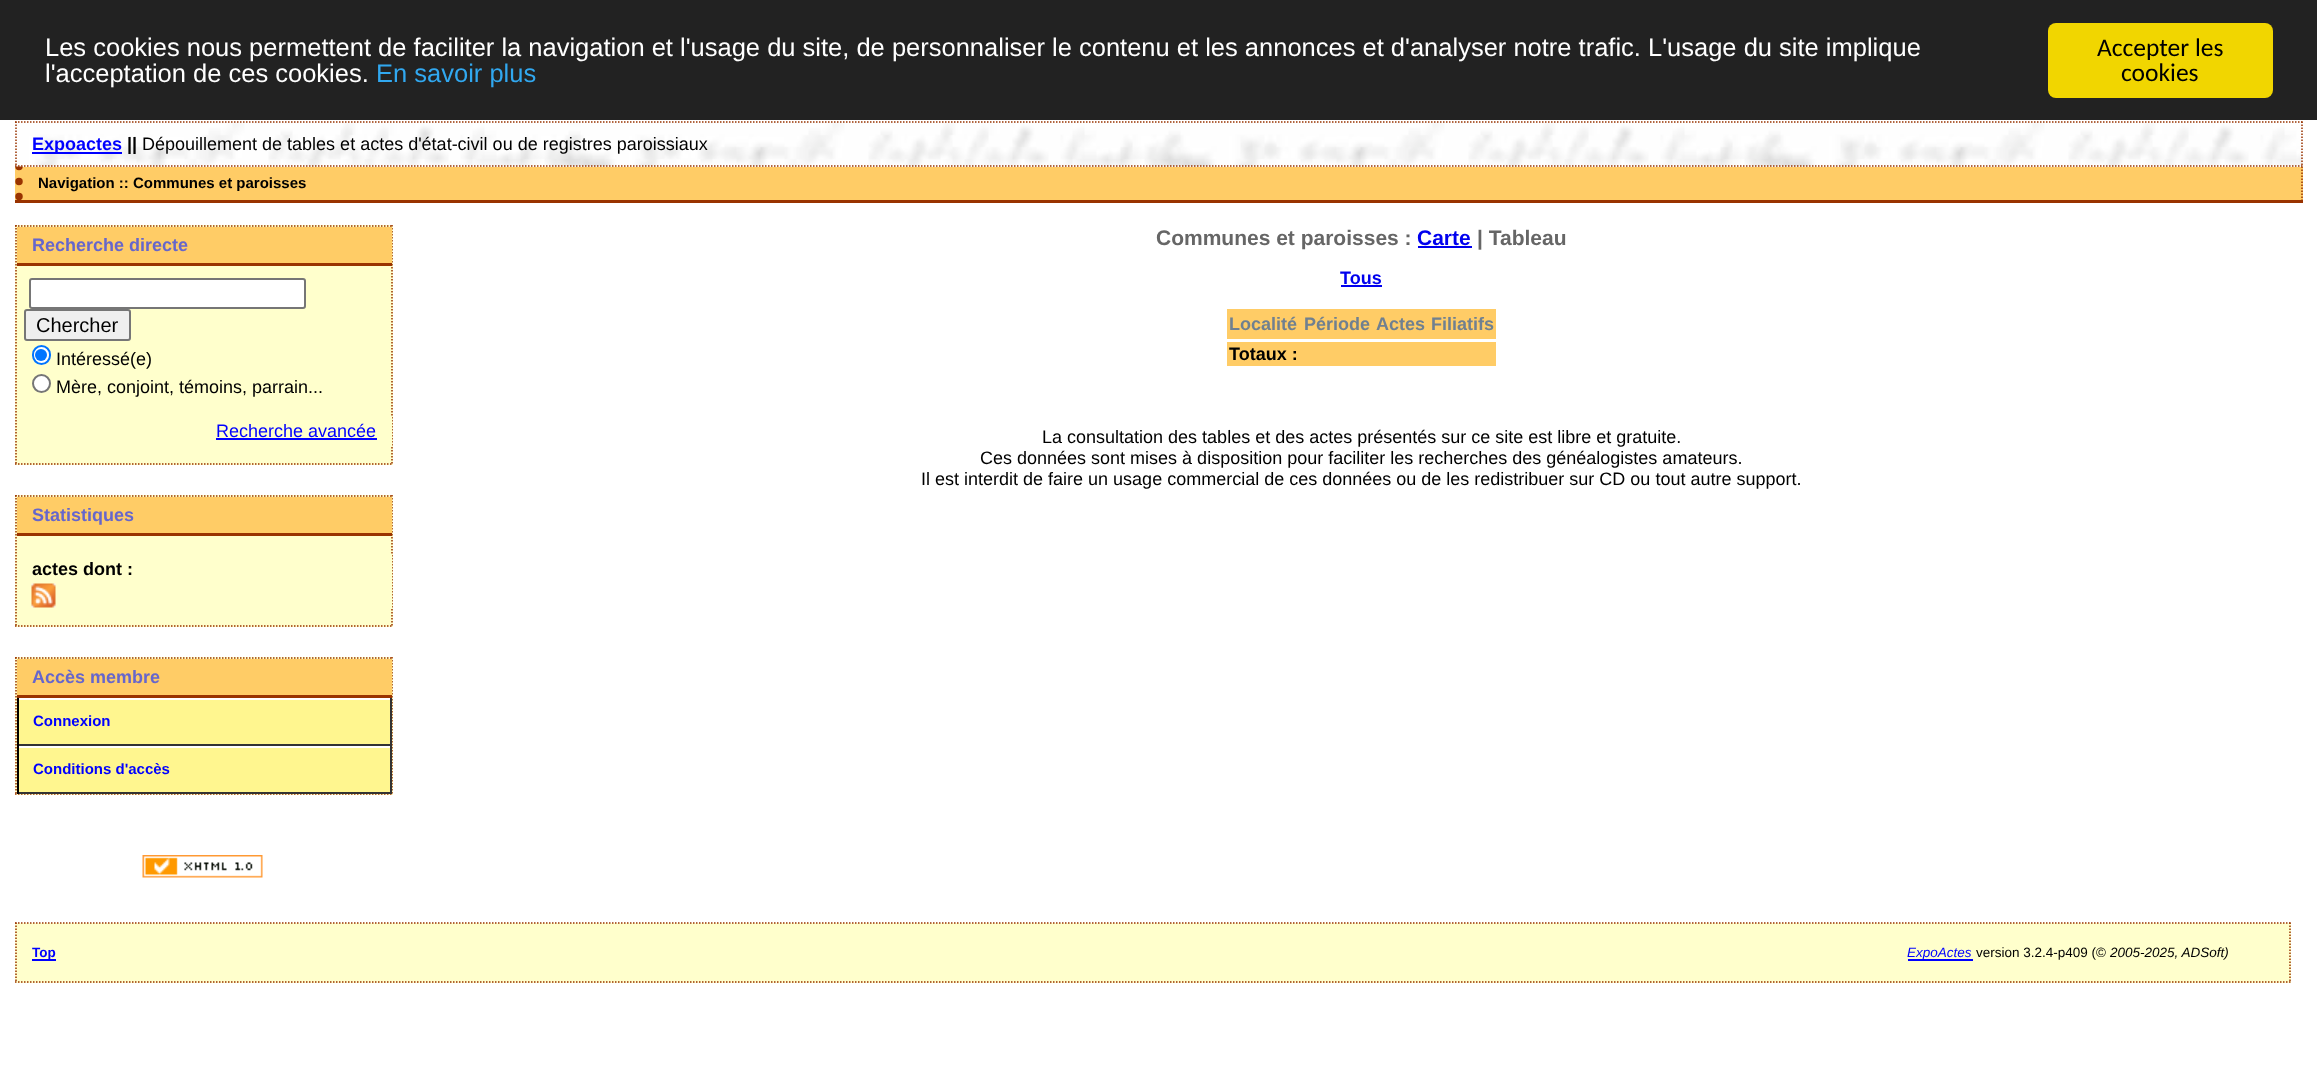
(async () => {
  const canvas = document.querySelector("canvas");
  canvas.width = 2317;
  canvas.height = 1082;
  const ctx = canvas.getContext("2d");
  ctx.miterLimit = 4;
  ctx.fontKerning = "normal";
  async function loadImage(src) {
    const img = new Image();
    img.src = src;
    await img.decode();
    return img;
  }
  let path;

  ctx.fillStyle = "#ffffff";
  ctx.fillRect(0, 0, 2317, 1082);
  ctx.fillStyle = "#222222";
  ctx.fillRect(0, 0, 2317, 120);
  ctx.fillStyle = "#f1d600";
  ctx.beginPath();
  ctx.roundRect(2048, 23, 225, 75, 8);
  ctx.fill();
  ctx.fillStyle = "#ffcc66";
  ctx.fillRect(15, 167, 2288, 33);
  path = new Path2D("M2302 166.5V202.5");
  ctx.strokeStyle = "#993300";
  ctx.lineWidth = 1.5;
  ctx.setLineDash([1.5, 1.5]);
  ctx.stroke(path);
  ctx.fillStyle = "#993300";
  ctx.fillRect(15, 200, 2288, 3);
  path = new Path2D("M19 166.5V202.5");
  ctx.lineWidth = 7.5;
  ctx.lineCap = "round";
  ctx.setLineDash([0, 15]);
  ctx.stroke(path);
  ctx.drawImage(await loadImage("img/1.png"), 15, 121, 2288, 46);
  path = new Path2D("M15 122H2302.5");
  ctx.lineWidth = 1.5;
  ctx.lineCap = "butt";
  ctx.setLineDash([1.5, 1.5]);
  ctx.stroke(path);
  path = new Path2D("M2302 121.5V166.5");
  ctx.stroke(path);
  path = new Path2D("M15 166H2302.5");
  ctx.stroke(path);
  path = new Path2D("M16 121.5V166.5");
  ctx.stroke(path);
  ctx.fillStyle = "#0000ff";
  ctx.fillRect(32, 152, 90, 2);
  ctx.fillStyle = "#ffffcc";
  ctx.fillRect(15, 225, 378, 240);
  path = new Path2D("M15 226H393");
  ctx.stroke(path);
  path = new Path2D("M392 225V465");
  ctx.stroke(path);
  path = new Path2D("M15 464H393");
  ctx.stroke(path);
  path = new Path2D("M16 225V465");
  ctx.stroke(path);
  ctx.fillStyle = "#ffcc66";
  ctx.fillRect(17, 227, 375, 36);
  ctx.fillStyle = "#993300";
  ctx.fillRect(17, 263, 375, 3);
  ctx.fillStyle = "#ffffff";
  ctx.beginPath();
  ctx.roundRect(30, 279, 275, 29, 2);
  ctx.fill();
  ctx.strokeStyle = "#767676";
  ctx.lineWidth = 2;
  ctx.setLineDash([]);
  ctx.stroke();
  ctx.fillStyle = "#efefef";
  ctx.beginPath();
  ctx.roundRect(25, 310, 105, 30, 2);
  ctx.fill();
  ctx.stroke();
  ctx.fillStyle = "#ffffff";
  ctx.beginPath();
  ctx.roundRect(33, 346, 17, 18, 8.5);
  ctx.fill();
  ctx.strokeStyle = "#0075ff";
  ctx.stroke();
  ctx.fillStyle = "#0075ff";
  ctx.beginPath();
  ctx.arc(41, 355, 6, 0, Math.PI * 2);
  ctx.fill();
  ctx.fillStyle = "#ffffff";
  ctx.beginPath();
  ctx.arc(41.5, 383.5, 8.5, 0, Math.PI * 2);
  ctx.fill();
  ctx.strokeStyle = "#767676";
  ctx.stroke();
  for (const [x, y, w, h, color] of [
    [391, 417, 1, 29, "#ffffcc"],
    [216, 438, 161, 2, "#0000ff"],
    [15, 495, 378, 132, "#ffffcc"],
  ]) {
    ctx.fillStyle = color;
    ctx.fillRect(x, y, w, h);
  }
  path = new Path2D("M15 496H393");
  ctx.strokeStyle = "#993300";
  ctx.lineWidth = 1.5;
  ctx.setLineDash([1.5, 1.5]);
  ctx.stroke(path);
  path = new Path2D("M392 495V627");
  ctx.stroke(path);
  path = new Path2D("M15 626H393");
  ctx.stroke(path);
  path = new Path2D("M16 495V627");
  ctx.stroke(path);
  for (const [x, y, w, h, color] of [
    [17, 497, 375, 36, "#ffcc66"],
    [17, 533, 375, 3, "#993300"],
    [391, 555, 1, 53, "#ffffcc"],
  ]) {
    ctx.fillStyle = color;
    ctx.fillRect(x, y, w, h);
  }
  ctx.drawImage(await loadImage("img/2.png"), 31, 583, 25, 25);
  ctx.fillRect(15, 657, 378, 138);
  path = new Path2D("M15 658H393");
  ctx.stroke(path);
  path = new Path2D("M392 657V795");
  ctx.stroke(path);
  path = new Path2D("M15 794H393");
  ctx.stroke(path);
  path = new Path2D("M16 657V795");
  ctx.stroke(path);
  for (const [x, y, w, h, color] of [
    [17, 659, 375, 36, "#ffcc66"],
    [17, 695, 375, 3, "#993300"],
    [19, 700, 371, 44, "#fff68f"],
    [17, 698, 375, 2, "#ffffff"],
    [390, 698, 2, 48, "#333333"],
    [17, 744, 375, 2, "#333333"],
    [17, 698, 2, 48, "#000000"],
    [19, 748, 371, 44, "#fff68f"],
    [17, 746, 375, 2, "#ffffff"],
    [390, 746, 2, 48, "#333333"],
    [17, 792, 375, 2, "#333333"],
    [17, 746, 2, 48, "#000000"],
  ]) {
    ctx.fillStyle = color;
    ctx.fillRect(x, y, w, h);
  }
  ctx.drawImage(await loadImage("img/3.png"), 142, 855, 121, 23);
  for (const [x, y, w, h, color] of [
    [1418, 246, 54, 2, "#0000ee"],
    [1341, 285, 41, 2, "#0000ee"],
    [1227, 309, 269, 30, "#ffcc66"],
    [1227, 342, 269, 24, "#ffcc66"],
    [15, 923, 2276, 60, "#ffffcc"],
  ]) {
    ctx.fillStyle = color;
    ctx.fillRect(x, y, w, h);
  }
  path = new Path2D("M15 923H2290.5");
  ctx.stroke(path);
  path = new Path2D("M2290 922.5V982.5");
  ctx.stroke(path);
  path = new Path2D("M15 982H2290.5");
  ctx.stroke(path);
  path = new Path2D("M16 922.5V982.5");
  ctx.stroke(path);
  ctx.fillStyle = "#0000ff";
  ctx.fillRect(32, 959, 24, 2);
  ctx.fillRect(1908, 959, 65, 2);
  ctx.font = "25.5px Liberation Sans";
  ctx.fillStyle = "#ffffff";
  ctx.fillText("Les cookies nous permettent de faciliter la navigation et l'usage du site, de personnaliser le contenu et les annonces et d'analyser notre trafic. L'usage du site implique", 45, 56);
  ctx.fillText("l'acceptation de ces cookies.", 45, 82);
  ctx.fillStyle = "#31a8f0";
  ctx.fillText("En savoir plus", 376, 82);
  ctx.font = "25.5px Carlito";
  ctx.fillStyle = "#000000";
  ctx.fillText("Accepter les", 2097, 56);
  ctx.fillText("cookies", 2121, 81);
  ctx.font = "bold 18px Liberation Sans";
  ctx.fillStyle = "#0000ff";
  ctx.fillText("Expoactes", 32, 150);
  ctx.fillStyle = "#000000";
  ctx.fillText("||", 127, 150);
  ctx.font = "18px Liberation Sans";
  ctx.fillText("Dépouillement de tables et actes d'état-civil ou de registres paroissiaux", 142, 150);
  ctx.font = "bold 15px Liberation Sans";
  ctx.fillText("Navigation :: Communes et paroisses", 38, 188);
  ctx.font = "bold 18px Liberation Sans";
  ctx.fillStyle = "#6666cc";
  ctx.fillText("Recherche directe", 32, 251);
  ctx.font = "20px Liberation Sans";
  ctx.fillStyle = "#000000";
  ctx.fillText("Chercher", 36, 332);
  ctx.font = "18px Liberation Sans";
  ctx.fillText("Intéressé(e)", 56, 365);
  ctx.fillText("Mère, conjoint, témoins, parrain...", 56, 393);
  ctx.fillStyle = "#0000ff";
  ctx.fillText("Recherche avancée", 216, 437);
  ctx.font = "bold 18px Liberation Sans";
  ctx.fillStyle = "#6666cc";
  ctx.fillText("Statistiques", 32, 521);
  ctx.fillStyle = "#000000";
  ctx.fillText("actes dont :", 32, 575);
  ctx.fillStyle = "#6666cc";
  ctx.fillText("Accès membre", 32, 683);
  ctx.font = "bold 15px Liberation Sans";
  ctx.fillStyle = "#0000ff";
  ctx.fillText("Connexion", 33, 726);
  ctx.fillText("Conditions d'accès", 33, 774);
  ctx.font = "bold 21px Liberation Sans";
  ctx.fillStyle = "#666666";
  ctx.fillText("Communes et paroisses :", 1156, 245);
  ctx.fillStyle = "#0000ee";
  ctx.fillText("Carte", 1417, 245);
  ctx.fillStyle = "#666666";
  ctx.fillText("| Tableau", 1477, 245);
  ctx.font = "bold 18px Liberation Sans";
  ctx.fillStyle = "#0000ee";
  ctx.fillText("Tous", 1340, 284);
  ctx.fillStyle = "#708090";
  for (const [text, x, y] of [
    ["Localité", 1229, 330],
    ["Période", 1304, 330],
    ["Actes", 1376, 330],
    ["Filiatifs", 1431, 330],
  ]) {
    ctx.fillText(text, x, y);
  }
  ctx.fillStyle = "#000000";
  ctx.fillText("Totaux :", 1229, 360);
  ctx.font = "18px Liberation Sans";
  for (const [text, x, y] of [
    ["La consultation des tables et des actes présentés sur ce site est libre et gratuite.", 1042, 443],
    ["Ces données sont mises à disposition pour faciliter les recherches des généalogistes amateurs.", 980, 464],
    ["Il est interdit de faire un usage commercial de ces données ou de les redistribuer sur CD ou tout autre support.", 921, 485],
  ]) {
    ctx.fillText(text, x, y);
  }
  ctx.font = "bold 13.5px Liberation Sans";
  ctx.fillStyle = "#0000ff";
  ctx.fillText("Top", 32, 957);
  ctx.font = "italic 13.5px Liberation Sans";
  ctx.fillText("ExpoActes", 1907, 957);
  ctx.font = "13.5px Liberation Sans";
  ctx.fillStyle = "#000000";
  ctx.fillText("version 3.2.4-p409 (©", 1976, 957);
  ctx.font = "italic 13.5px Liberation Sans";
  ctx.fillText("2005-2025, ADSoft)", 2110, 957);
})();
